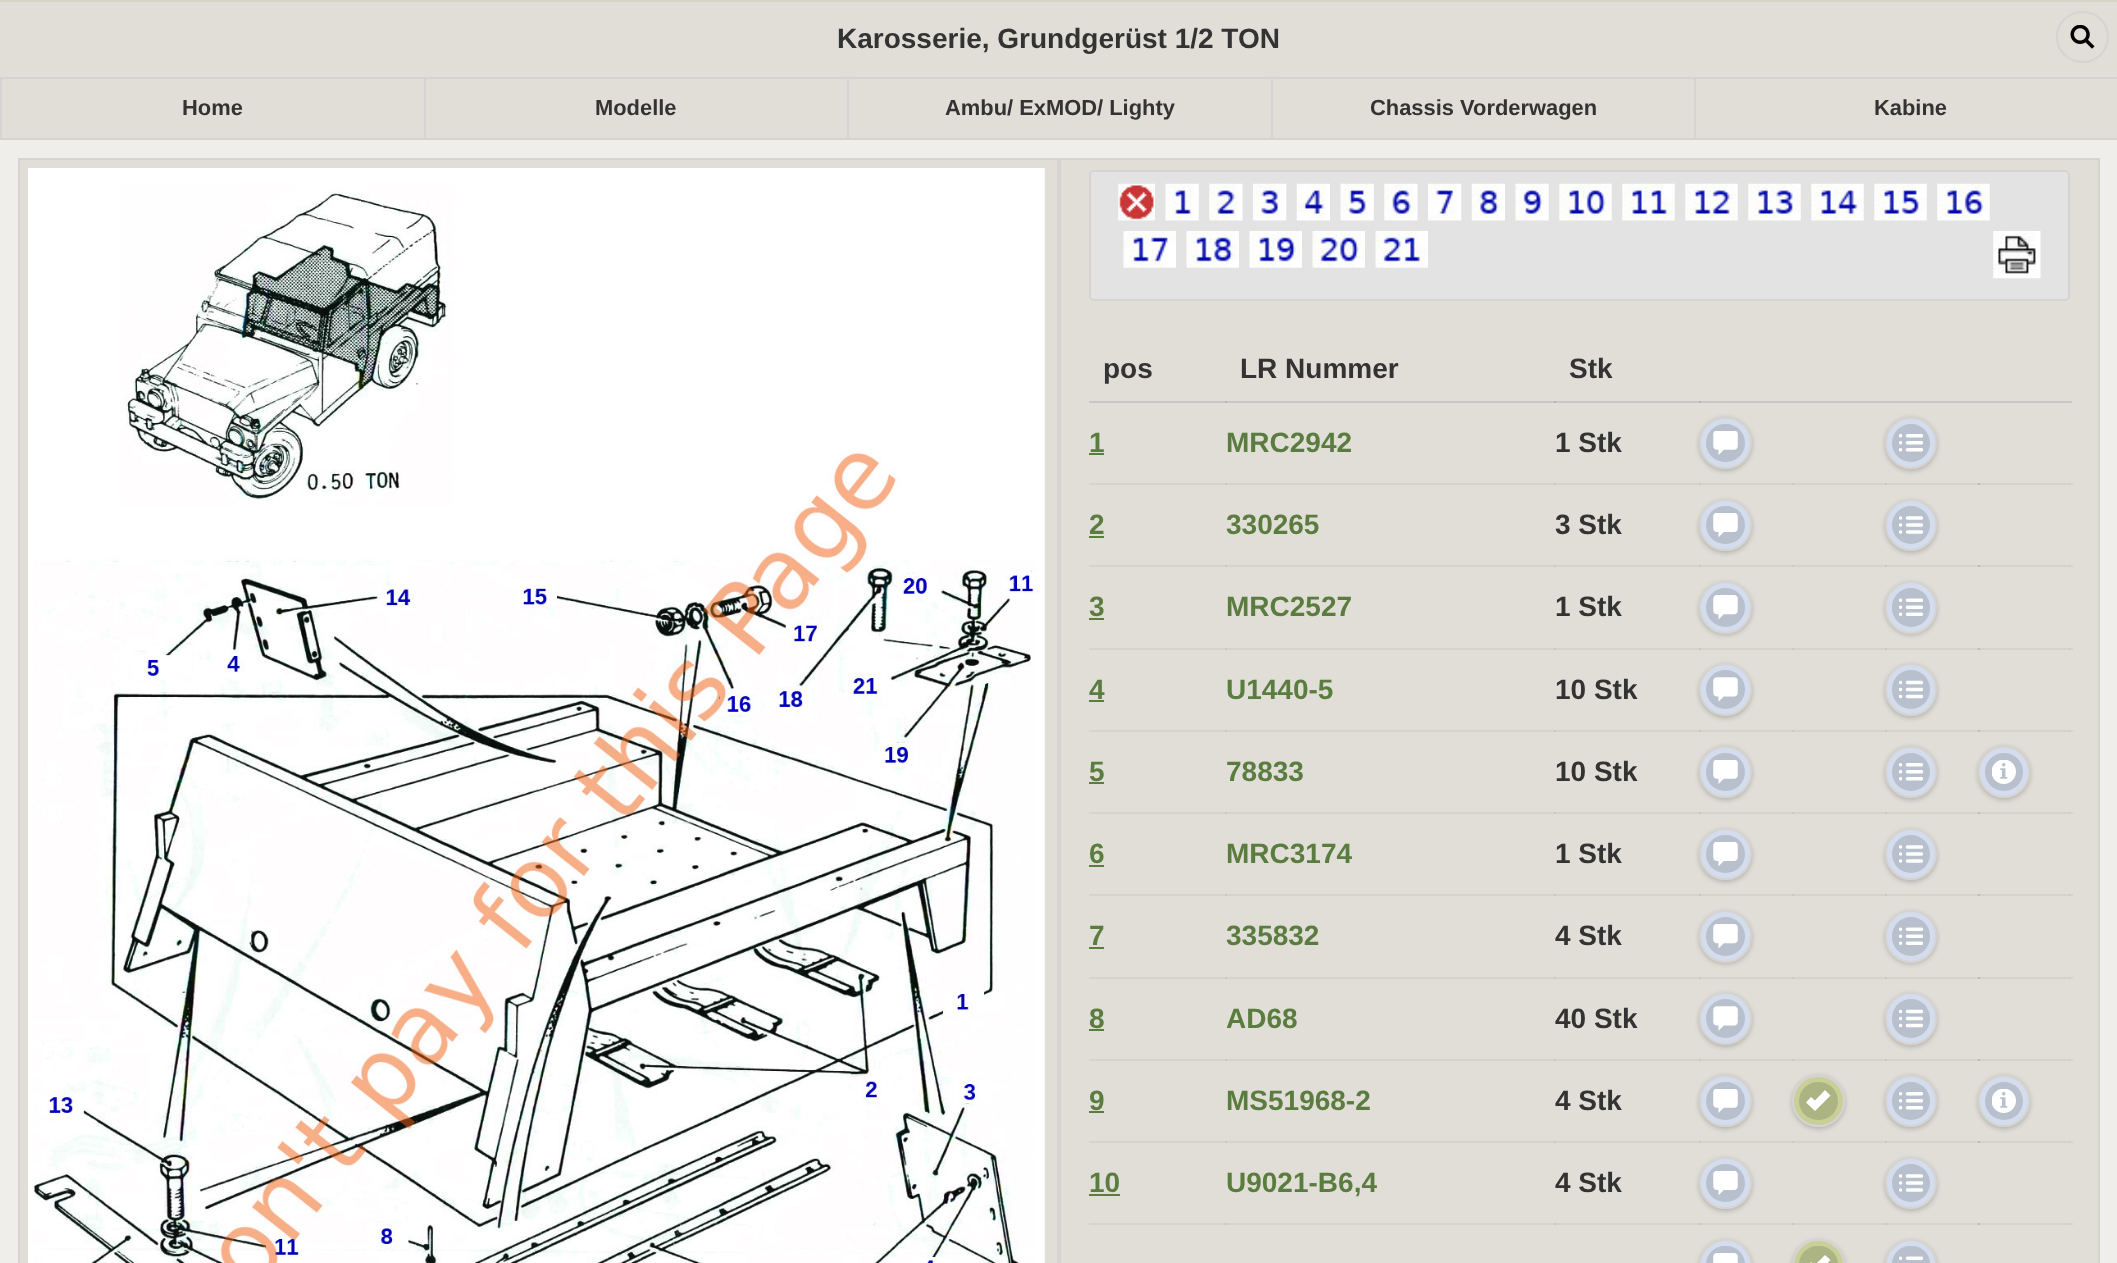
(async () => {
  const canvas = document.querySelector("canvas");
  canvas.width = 2117;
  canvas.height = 1263;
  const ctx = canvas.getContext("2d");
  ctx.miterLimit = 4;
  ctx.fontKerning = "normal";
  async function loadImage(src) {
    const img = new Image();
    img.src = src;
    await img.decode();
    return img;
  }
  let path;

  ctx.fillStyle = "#efeeeb";
  ctx.fillRect(0, 0, 2117, 1263);
  for (const [x, y, w, h, color] of [
    [0, 2, 2117, 136, "#e0ded7"],
    [0, 0, 2117, 2, "#d6d3c7"],
    [0, 138, 2117, 2, "#d6d3c7"],
  ]) {
    ctx.fillStyle = color;
    ctx.fillRect(x, y, w, h);
  }
  ctx.beginPath();
  ctx.roundRect(2057, 12, 51, 50, 25);
  ctx.strokeStyle = "#d5d4d2";
  ctx.lineWidth = 2;
  ctx.stroke();
  ctx.drawImage(await loadImage("img/1.png"), 2070, 25, 25, 24);
  for (const [x, y, w, h, color] of [
    [0, 77, 2117, 2, "#d5d4d2"],
    [0, 77, 2, 61, "#d5d4d2"],
    [424, 77, 2, 61, "#d5d4d2"],
    [847, 77, 2, 61, "#d5d4d2"],
    [1271, 77, 2, 61, "#d5d4d2"],
    [1694, 77, 2, 61, "#d5d4d2"],
  ]) {
    ctx.fillStyle = color;
    ctx.fillRect(x, y, w, h);
  }
  ctx.fillStyle = "#e0ded7";
  ctx.beginPath();
  ctx.rect(19, 159, 1039, 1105);
  ctx.fill();
  ctx.stroke();
  ctx.drawImage(await loadImage("img/2.png"), 28, 168, 1017, 1095);
  for (const [x, y, w, h, color] of [
    [1061, 160, 1037, 1103, "#e0ded7"],
    [1089, 401, 612, 2, "#cac8c2"],
    [1225, 401, 2, 2, "#b6b4af"],
    [1554, 401, 2, 2, "#b6b4af"],
    [1089, 483, 981, 2, "#d5d3cc"],
    [1225, 483, 2, 2, "#cac8c2"],
    [1554, 483, 2, 2, "#cac8c2"],
    [1699, 483, 2, 2, "#cac8c2"],
    [1792, 483, 2, 2, "#cac8c2"],
    [1885, 483, 2, 2, "#cac8c2"],
    [1089, 565, 981, 2, "#d5d3cc"],
    [1225, 565, 2, 2, "#cac8c2"],
    [1554, 565, 2, 2, "#cac8c2"],
    [1699, 565, 2, 2, "#cac8c2"],
    [1792, 565, 2, 2, "#cac8c2"],
    [1885, 565, 2, 2, "#cac8c2"],
    [1089, 648, 981, 2, "#d5d3cc"],
    [1225, 648, 2, 2, "#cac8c2"],
    [1554, 648, 2, 2, "#cac8c2"],
    [1699, 648, 2, 2, "#cac8c2"],
    [1792, 648, 2, 2, "#cac8c2"],
    [1885, 648, 2, 2, "#cac8c2"],
    [1089, 730, 981, 2, "#d5d3cc"],
    [1225, 730, 2, 2, "#cac8c2"],
    [1554, 730, 2, 2, "#cac8c2"],
    [1699, 730, 2, 2, "#cac8c2"],
    [1792, 730, 2, 2, "#cac8c2"],
    [1885, 730, 2, 2, "#cac8c2"],
    [1089, 812, 981, 2, "#d5d3cc"],
    [1225, 812, 2, 2, "#cac8c2"],
    [1554, 812, 2, 2, "#cac8c2"],
    [1699, 812, 2, 2, "#cac8c2"],
    [1792, 812, 2, 2, "#cac8c2"],
    [1885, 812, 2, 2, "#cac8c2"],
    [1089, 894, 981, 2, "#d5d3cc"],
    [1225, 894, 2, 2, "#cac8c2"],
    [1554, 894, 2, 2, "#cac8c2"],
    [1699, 894, 2, 2, "#cac8c2"],
    [1792, 894, 2, 2, "#cac8c2"],
    [1885, 894, 2, 2, "#cac8c2"],
    [1089, 977, 981, 2, "#d5d3cc"],
    [1225, 977, 2, 2, "#cac8c2"],
    [1554, 977, 2, 2, "#cac8c2"],
    [1699, 977, 2, 2, "#cac8c2"],
    [1792, 977, 2, 2, "#cac8c2"],
    [1885, 977, 2, 2, "#cac8c2"],
    [1089, 1059, 981, 2, "#d5d3cc"],
    [1225, 1059, 2, 2, "#cac8c2"],
    [1554, 1059, 2, 2, "#cac8c2"],
    [1699, 1059, 2, 2, "#cac8c2"],
    [1792, 1059, 2, 2, "#cac8c2"],
    [1885, 1059, 2, 2, "#cac8c2"],
    [1089, 1141, 981, 2, "#d5d3cc"],
    [1225, 1141, 2, 2, "#cac8c2"],
    [1554, 1141, 2, 2, "#cac8c2"],
    [1699, 1141, 2, 2, "#cac8c2"],
    [1792, 1141, 2, 2, "#cac8c2"],
    [1885, 1141, 2, 2, "#cac8c2"],
    [1089, 1223, 981, 2, "#d5d3cc"],
    [1225, 1223, 2, 2, "#cac8c2"],
    [1554, 1223, 2, 2, "#cac8c2"],
    [1699, 1223, 2, 2, "#cac8c2"],
    [1792, 1223, 2, 2, "#cac8c2"],
    [1885, 1223, 2, 2, "#cac8c2"],
  ]) {
    ctx.fillStyle = color;
    ctx.fillRect(x, y, w, h);
  }
  ctx.strokeRect(1060, 159, 1039, 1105);
  ctx.fillStyle = "#e3e3e3";
  ctx.beginPath();
  ctx.roundRect(1090, 171, 979, 129, 4);
  ctx.fill();
  ctx.stroke();
  ctx.drawImage(await loadImage("img/3.png"), 1118, 183, 37, 38);
  ctx.drawImage(await loadImage("img/4.png"), 1165, 183, 34, 38);
  ctx.drawImage(await loadImage("img/5.png"), 1209, 183, 34, 38);
  ctx.drawImage(await loadImage("img/6.png"), 1253, 183, 34, 38);
  ctx.drawImage(await loadImage("img/7.png"), 1296, 183, 34, 38);
  ctx.drawImage(await loadImage("img/8.png"), 1340, 183, 34, 38);
  ctx.drawImage(await loadImage("img/9.png"), 1384, 183, 34, 38);
  ctx.drawImage(await loadImage("img/10.png"), 1428, 183, 34, 38);
  ctx.drawImage(await loadImage("img/11.png"), 1471, 183, 34, 38);
  ctx.drawImage(await loadImage("img/12.png"), 1515, 183, 34, 38);
  ctx.drawImage(await loadImage("img/13.png"), 1559, 183, 53, 38);
  ctx.drawImage(await loadImage("img/14.png"), 1622, 183, 53, 38);
  ctx.drawImage(await loadImage("img/15.png"), 1685, 183, 53, 38);
  ctx.drawImage(await loadImage("img/16.png"), 1748, 183, 53, 38);
  ctx.drawImage(await loadImage("img/17.png"), 1811, 183, 53, 38);
  ctx.drawImage(await loadImage("img/18.png"), 1874, 183, 53, 38);
  ctx.drawImage(await loadImage("img/19.png"), 1937, 183, 53, 38);
  ctx.drawImage(await loadImage("img/20.png"), 1123, 231, 53, 37);
  ctx.drawImage(await loadImage("img/21.png"), 1186, 231, 53, 37);
  ctx.drawImage(await loadImage("img/22.png"), 1249, 231, 53, 37);
  ctx.drawImage(await loadImage("img/23.png"), 1312, 231, 53, 37);
  ctx.drawImage(await loadImage("img/24.png"), 1375, 231, 53, 37);
  ctx.drawImage(await loadImage("img/25.png"), 1993, 231, 48, 48);
  for (const [x, y, w, h, color] of [
    [1699, 401, 373, 2, "#cac8c2"],
    [1699, 401, 2, 2, "#b6b4af"],
    [1089, 453, 15, 2, "#5a7d3f"],
  ]) {
    ctx.fillStyle = color;
    ctx.fillRect(x, y, w, h);
  }
  ctx.fillStyle = "rgba(0, 0, 0, 0.2)";
  ctx.filter = "blur(2.5px)";
  ctx.beginPath();
  ctx.roundRect(1699, 418, 53, 53, 26.5);
  ctx.fill();
  ctx.filter = "none";
  ctx.fillStyle = "#d3dded";
  ctx.beginPath();
  ctx.roundRect(1700, 418, 51, 50, 25);
  ctx.fill();
  ctx.stroke();
  ctx.fillStyle = "#b7c0cc";
  ctx.beginPath();
  ctx.roundRect(1706, 424, 39, 38, 19);
  ctx.fill();
  ctx.drawImage(await loadImage("img/26.png"), 1713, 431, 25, 24);
  ctx.fillStyle = "rgba(0, 0, 0, 0.2)";
  ctx.filter = "blur(2.5px)";
  ctx.beginPath();
  ctx.roundRect(1885, 418, 52, 53, 26);
  ctx.fill();
  ctx.filter = "none";
  ctx.fillStyle = "#d3dded";
  ctx.beginPath();
  ctx.arc(1911, 443, 25, 0, Math.PI * 2);
  ctx.fill();
  ctx.stroke();
  ctx.fillStyle = "#b7c0cc";
  ctx.beginPath();
  ctx.arc(1911, 443, 19, 0, Math.PI * 2);
  ctx.fill();
  ctx.drawImage(await loadImage("img/27.png"), 1899, 434, 24, 18);
  for (const [x, y, w, h, color] of [
    [1978, 483, 2, 2, "#c0beb8"],
    [1978, 483, 1, 2, "#b6b5af"],
    [2069, 483, 4, 2, "#d5d3cc"],
    [2069, 483, 1, 2, "#cac8c2"],
    [1089, 536, 15, 2, "#5a7d3f"],
  ]) {
    ctx.fillStyle = color;
    ctx.fillRect(x, y, w, h);
  }
  ctx.fillStyle = "rgba(0, 0, 0, 0.2)";
  ctx.filter = "blur(2.5px)";
  ctx.beginPath();
  ctx.roundRect(1699, 501, 53, 52, 26);
  ctx.fill();
  ctx.filter = "none";
  ctx.fillStyle = "#d3dded";
  ctx.beginPath();
  ctx.roundRect(1700, 500, 51, 50, 25);
  ctx.fill();
  ctx.stroke();
  ctx.fillStyle = "#b7c0cc";
  ctx.beginPath();
  ctx.roundRect(1706, 506, 39, 38, 19);
  ctx.fill();
  ctx.drawImage(await loadImage("img/28.png"), 1713, 513, 25, 24);
  ctx.fillStyle = "rgba(0, 0, 0, 0.2)";
  ctx.filter = "blur(2.5px)";
  ctx.beginPath();
  ctx.roundRect(1885, 501, 52, 52, 26);
  ctx.fill();
  ctx.filter = "none";
  ctx.fillStyle = "#d3dded";
  ctx.beginPath();
  ctx.arc(1911, 525, 25, 0, Math.PI * 2);
  ctx.fill();
  ctx.stroke();
  ctx.fillStyle = "#b7c0cc";
  ctx.beginPath();
  ctx.arc(1911, 525, 19, 0, Math.PI * 2);
  ctx.fill();
  ctx.drawImage(await loadImage("img/29.png"), 1899, 516, 24, 18);
  for (const [x, y, w, h, color] of [
    [1978, 565, 2, 2, "#c0beb8"],
    [1978, 565, 1, 2, "#b6b5af"],
    [2069, 565, 4, 2, "#d5d3cc"],
    [2069, 565, 1, 2, "#cac8c2"],
    [1089, 618, 15, 2, "#5a7d3f"],
  ]) {
    ctx.fillStyle = color;
    ctx.fillRect(x, y, w, h);
  }
  ctx.fillStyle = "rgba(0, 0, 0, 0.2)";
  ctx.filter = "blur(2.5px)";
  ctx.beginPath();
  ctx.roundRect(1699, 583, 53, 52, 26);
  ctx.fill();
  ctx.filter = "none";
  ctx.fillStyle = "#d3dded";
  ctx.beginPath();
  ctx.arc(1725.5, 607.5, 25.5, 0, Math.PI * 2);
  ctx.fill();
  ctx.stroke();
  ctx.fillStyle = "#b7c0cc";
  ctx.beginPath();
  ctx.arc(1725.5, 607.5, 19.5, 0, Math.PI * 2);
  ctx.fill();
  ctx.drawImage(await loadImage("img/30.png"), 1713, 595, 25, 25);
  ctx.fillStyle = "rgba(0, 0, 0, 0.2)";
  ctx.filter = "blur(2.5px)";
  ctx.beginPath();
  ctx.roundRect(1885, 583, 52, 52, 26);
  ctx.fill();
  ctx.filter = "none";
  ctx.fillStyle = "#d3dded";
  ctx.beginPath();
  ctx.roundRect(1886, 582, 50, 51, 25);
  ctx.fill();
  ctx.stroke();
  ctx.fillStyle = "#b7c0cc";
  ctx.beginPath();
  ctx.roundRect(1892, 588, 38, 39, 19);
  ctx.fill();
  ctx.drawImage(await loadImage("img/31.png"), 1899, 598, 24, 18);
  for (const [x, y, w, h, color] of [
    [1978, 648, 2, 2, "#c0beb8"],
    [1978, 648, 1, 2, "#b6b5af"],
    [2069, 648, 4, 2, "#d5d3cc"],
    [2069, 648, 1, 2, "#cac8c2"],
    [1089, 700, 15, 2, "#5a7d3f"],
  ]) {
    ctx.fillStyle = color;
    ctx.fillRect(x, y, w, h);
  }
  ctx.fillStyle = "rgba(0, 0, 0, 0.2)";
  ctx.filter = "blur(2.5px)";
  ctx.beginPath();
  ctx.roundRect(1699, 665, 53, 53, 26.5);
  ctx.fill();
  ctx.filter = "none";
  ctx.fillStyle = "#d3dded";
  ctx.beginPath();
  ctx.arc(1725.5, 689.5, 25.5, 0, Math.PI * 2);
  ctx.fill();
  ctx.stroke();
  ctx.fillStyle = "#b7c0cc";
  ctx.beginPath();
  ctx.arc(1725.5, 689.5, 19.5, 0, Math.PI * 2);
  ctx.fill();
  ctx.drawImage(await loadImage("img/32.png"), 1713, 677, 25, 25);
  ctx.fillStyle = "rgba(0, 0, 0, 0.2)";
  ctx.filter = "blur(2.5px)";
  ctx.beginPath();
  ctx.roundRect(1885, 665, 52, 53, 26);
  ctx.fill();
  ctx.filter = "none";
  ctx.fillStyle = "#d3dded";
  ctx.beginPath();
  ctx.roundRect(1886, 664, 50, 51, 25);
  ctx.fill();
  ctx.stroke();
  ctx.fillStyle = "#b7c0cc";
  ctx.beginPath();
  ctx.roundRect(1892, 670, 38, 39, 19);
  ctx.fill();
  ctx.drawImage(await loadImage("img/33.png"), 1899, 680, 24, 19);
  for (const [x, y, w, h, color] of [
    [1978, 730, 2, 2, "#c0beb8"],
    [1978, 730, 1, 2, "#b6b5af"],
    [2069, 730, 4, 2, "#d5d3cc"],
    [2069, 730, 1, 2, "#cac8c2"],
    [1089, 782, 15, 2, "#5a7d3f"],
  ]) {
    ctx.fillStyle = color;
    ctx.fillRect(x, y, w, h);
  }
  ctx.fillStyle = "rgba(0, 0, 0, 0.2)";
  ctx.filter = "blur(2.5px)";
  ctx.beginPath();
  ctx.roundRect(1699, 747, 53, 53, 26.5);
  ctx.fill();
  ctx.filter = "none";
  ctx.fillStyle = "#d3dded";
  ctx.beginPath();
  ctx.roundRect(1700, 747, 51, 50, 25);
  ctx.fill();
  ctx.stroke();
  ctx.fillStyle = "#b7c0cc";
  ctx.beginPath();
  ctx.roundRect(1706, 753, 39, 38, 19);
  ctx.fill();
  ctx.drawImage(await loadImage("img/26.png"), 1713, 760, 25, 24);
  ctx.fillStyle = "rgba(0, 0, 0, 0.2)";
  ctx.filter = "blur(2.5px)";
  ctx.beginPath();
  ctx.roundRect(1885, 747, 52, 53, 26);
  ctx.fill();
  ctx.filter = "none";
  ctx.fillStyle = "#d3dded";
  ctx.beginPath();
  ctx.arc(1911, 772, 25, 0, Math.PI * 2);
  ctx.fill();
  ctx.stroke();
  ctx.fillStyle = "#b7c0cc";
  ctx.beginPath();
  ctx.arc(1911, 772, 19, 0, Math.PI * 2);
  ctx.fill();
  ctx.drawImage(await loadImage("img/27.png"), 1899, 763, 24, 18);
  ctx.fillStyle = "rgba(0, 0, 0, 0.2)";
  ctx.filter = "blur(2.5px)";
  ctx.beginPath();
  ctx.roundRect(1978, 747, 52, 53, 26);
  ctx.fill();
  ctx.filter = "none";
  ctx.fillStyle = "#d3dded";
  ctx.beginPath();
  ctx.arc(2004, 772, 25, 0, Math.PI * 2);
  ctx.fill();
  ctx.stroke();
  ctx.fillStyle = "#b7c0cc";
  ctx.beginPath();
  ctx.arc(2004, 772, 19, 0, Math.PI * 2);
  ctx.fill();
  ctx.drawImage(await loadImage("img/34.png"), 1992, 760, 24, 24);
  for (const [x, y, w, h, color] of [
    [1978, 812, 2, 2, "#c0beb8"],
    [1978, 812, 1, 2, "#b6b5af"],
    [2069, 812, 4, 2, "#d5d3cc"],
    [2069, 812, 1, 2, "#cac8c2"],
    [1089, 865, 15, 2, "#5a7d3f"],
  ]) {
    ctx.fillStyle = color;
    ctx.fillRect(x, y, w, h);
  }
  ctx.fillStyle = "rgba(0, 0, 0, 0.2)";
  ctx.filter = "blur(2.5px)";
  ctx.beginPath();
  ctx.roundRect(1699, 830, 53, 52, 26);
  ctx.fill();
  ctx.filter = "none";
  ctx.fillStyle = "#d3dded";
  ctx.beginPath();
  ctx.roundRect(1700, 829, 51, 50, 25);
  ctx.fill();
  ctx.stroke();
  ctx.fillStyle = "#b7c0cc";
  ctx.beginPath();
  ctx.roundRect(1706, 835, 39, 38, 19);
  ctx.fill();
  ctx.drawImage(await loadImage("img/28.png"), 1713, 842, 25, 24);
  ctx.fillStyle = "rgba(0, 0, 0, 0.2)";
  ctx.filter = "blur(2.5px)";
  ctx.beginPath();
  ctx.roundRect(1885, 830, 52, 52, 26);
  ctx.fill();
  ctx.filter = "none";
  ctx.fillStyle = "#d3dded";
  ctx.beginPath();
  ctx.arc(1911, 854, 25, 0, Math.PI * 2);
  ctx.fill();
  ctx.stroke();
  ctx.fillStyle = "#b7c0cc";
  ctx.beginPath();
  ctx.arc(1911, 854, 19, 0, Math.PI * 2);
  ctx.fill();
  ctx.drawImage(await loadImage("img/29.png"), 1899, 845, 24, 18);
  for (const [x, y, w, h, color] of [
    [1978, 894, 2, 2, "#c0beb8"],
    [1978, 894, 1, 2, "#b6b5af"],
    [2069, 894, 4, 2, "#d5d3cc"],
    [2069, 894, 1, 2, "#cac8c2"],
    [1089, 947, 15, 2, "#5a7d3f"],
  ]) {
    ctx.fillStyle = color;
    ctx.fillRect(x, y, w, h);
  }
  ctx.fillStyle = "rgba(0, 0, 0, 0.2)";
  ctx.filter = "blur(2.5px)";
  ctx.beginPath();
  ctx.roundRect(1699, 912, 53, 52, 26);
  ctx.fill();
  ctx.filter = "none";
  ctx.fillStyle = "#d3dded";
  ctx.beginPath();
  ctx.arc(1725.5, 936.5, 25.5, 0, Math.PI * 2);
  ctx.fill();
  ctx.stroke();
  ctx.fillStyle = "#b7c0cc";
  ctx.beginPath();
  ctx.arc(1725.5, 936.5, 19.5, 0, Math.PI * 2);
  ctx.fill();
  ctx.drawImage(await loadImage("img/30.png"), 1713, 924, 25, 25);
  ctx.fillStyle = "rgba(0, 0, 0, 0.2)";
  ctx.filter = "blur(2.5px)";
  ctx.beginPath();
  ctx.roundRect(1885, 912, 52, 52, 26);
  ctx.fill();
  ctx.filter = "none";
  ctx.fillStyle = "#d3dded";
  ctx.beginPath();
  ctx.roundRect(1886, 911, 50, 51, 25);
  ctx.fill();
  ctx.stroke();
  ctx.fillStyle = "#b7c0cc";
  ctx.beginPath();
  ctx.roundRect(1892, 917, 38, 39, 19);
  ctx.fill();
  ctx.drawImage(await loadImage("img/31.png"), 1899, 927, 24, 18);
  for (const [x, y, w, h, color] of [
    [1978, 977, 2, 2, "#c0beb8"],
    [1978, 977, 1, 2, "#b6b5af"],
    [2069, 977, 4, 2, "#d5d3cc"],
    [2069, 977, 1, 2, "#cac8c2"],
    [1089, 1029, 15, 2, "#5a7d3f"],
  ]) {
    ctx.fillStyle = color;
    ctx.fillRect(x, y, w, h);
  }
  ctx.fillStyle = "rgba(0, 0, 0, 0.2)";
  ctx.filter = "blur(2.5px)";
  ctx.beginPath();
  ctx.roundRect(1699, 994, 53, 53, 26.5);
  ctx.fill();
  ctx.filter = "none";
  ctx.fillStyle = "#d3dded";
  ctx.beginPath();
  ctx.arc(1725.5, 1018.5, 25.5, 0, Math.PI * 2);
  ctx.fill();
  ctx.stroke();
  ctx.fillStyle = "#b7c0cc";
  ctx.beginPath();
  ctx.arc(1725.5, 1018.5, 19.5, 0, Math.PI * 2);
  ctx.fill();
  ctx.drawImage(await loadImage("img/32.png"), 1713, 1006, 25, 25);
  ctx.fillStyle = "rgba(0, 0, 0, 0.2)";
  ctx.filter = "blur(2.5px)";
  ctx.beginPath();
  ctx.roundRect(1885, 994, 52, 53, 26);
  ctx.fill();
  ctx.filter = "none";
  ctx.fillStyle = "#d3dded";
  ctx.beginPath();
  ctx.roundRect(1886, 993, 50, 51, 25);
  ctx.fill();
  ctx.stroke();
  ctx.fillStyle = "#b7c0cc";
  ctx.beginPath();
  ctx.roundRect(1892, 999, 38, 39, 19);
  ctx.fill();
  ctx.drawImage(await loadImage("img/33.png"), 1899, 1009, 24, 19);
  for (const [x, y, w, h, color] of [
    [1978, 1059, 2, 2, "#c0beb8"],
    [1978, 1059, 1, 2, "#b6b5af"],
    [2069, 1059, 4, 2, "#d5d3cc"],
    [2069, 1059, 1, 2, "#cac8c2"],
    [1089, 1111, 15, 2, "#5a7d3f"],
  ]) {
    ctx.fillStyle = color;
    ctx.fillRect(x, y, w, h);
  }
  ctx.fillStyle = "rgba(0, 0, 0, 0.2)";
  ctx.filter = "blur(2.5px)";
  ctx.beginPath();
  ctx.roundRect(1699, 1076, 53, 53, 26.5);
  ctx.fill();
  ctx.filter = "none";
  ctx.fillStyle = "#d3dded";
  ctx.beginPath();
  ctx.roundRect(1700, 1076, 51, 50, 25);
  ctx.fill();
  ctx.stroke();
  ctx.fillStyle = "#b7c0cc";
  ctx.beginPath();
  ctx.roundRect(1706, 1082, 39, 38, 19);
  ctx.fill();
  ctx.drawImage(await loadImage("img/26.png"), 1713, 1089, 25, 24);
  ctx.fillStyle = "rgba(0, 0, 0, 0.2)";
  ctx.filter = "blur(2.5px)";
  ctx.beginPath();
  ctx.roundRect(1792, 1076, 53, 53, 26.5);
  ctx.fill();
  ctx.filter = "none";
  ctx.fillStyle = "#c8cf97";
  ctx.beginPath();
  ctx.roundRect(1793, 1076, 51, 50, 25);
  ctx.fill();
  ctx.stroke();
  ctx.fillStyle = "#adb483";
  ctx.beginPath();
  ctx.roundRect(1799, 1082, 39, 38, 19);
  ctx.fill();
  ctx.fillStyle = "#ffffff";
  path = new Path2D("M1830.5 1095.5L1825 1090L1815 1100.5L1811 1097L1806 1102.5L1815 1111Z");
  ctx.fill(path);
  ctx.fillStyle = "rgba(0, 0, 0, 0.2)";
  ctx.filter = "blur(2.5px)";
  ctx.beginPath();
  ctx.roundRect(1885, 1076, 52, 53, 26);
  ctx.fill();
  ctx.filter = "none";
  ctx.fillStyle = "#d3dded";
  ctx.beginPath();
  ctx.arc(1911, 1101, 25, 0, Math.PI * 2);
  ctx.fill();
  ctx.stroke();
  ctx.fillStyle = "#b7c0cc";
  ctx.beginPath();
  ctx.arc(1911, 1101, 19, 0, Math.PI * 2);
  ctx.fill();
  ctx.drawImage(await loadImage("img/27.png"), 1899, 1092, 24, 18);
  ctx.fillStyle = "rgba(0, 0, 0, 0.2)";
  ctx.filter = "blur(2.5px)";
  ctx.beginPath();
  ctx.roundRect(1978, 1076, 52, 53, 26);
  ctx.fill();
  ctx.filter = "none";
  ctx.fillStyle = "#d3dded";
  ctx.beginPath();
  ctx.arc(2004, 1101, 25, 0, Math.PI * 2);
  ctx.fill();
  ctx.stroke();
  ctx.fillStyle = "#b7c0cc";
  ctx.beginPath();
  ctx.arc(2004, 1101, 19, 0, Math.PI * 2);
  ctx.fill();
  ctx.drawImage(await loadImage("img/34.png"), 1992, 1089, 24, 24);
  for (const [x, y, w, h, color] of [
    [1978, 1141, 2, 2, "#c0beb8"],
    [1978, 1141, 1, 2, "#b6b5af"],
    [2069, 1141, 4, 2, "#d5d3cc"],
    [2069, 1141, 1, 2, "#cac8c2"],
    [1089, 1194, 31, 2, "#5a7d3f"],
  ]) {
    ctx.fillStyle = color;
    ctx.fillRect(x, y, w, h);
  }
  ctx.fillStyle = "rgba(0, 0, 0, 0.2)";
  ctx.filter = "blur(2.5px)";
  ctx.beginPath();
  ctx.roundRect(1699, 1159, 53, 52, 26);
  ctx.fill();
  ctx.filter = "none";
  ctx.fillStyle = "#d3dded";
  ctx.beginPath();
  ctx.roundRect(1700, 1158, 51, 50, 25);
  ctx.fill();
  ctx.stroke();
  ctx.fillStyle = "#b7c0cc";
  ctx.beginPath();
  ctx.roundRect(1706, 1164, 39, 38, 19);
  ctx.fill();
  ctx.drawImage(await loadImage("img/28.png"), 1713, 1171, 25, 24);
  ctx.fillStyle = "rgba(0, 0, 0, 0.2)";
  ctx.filter = "blur(2.5px)";
  ctx.beginPath();
  ctx.roundRect(1885, 1159, 52, 52, 26);
  ctx.fill();
  ctx.filter = "none";
  ctx.fillStyle = "#d3dded";
  ctx.beginPath();
  ctx.arc(1911, 1183, 25, 0, Math.PI * 2);
  ctx.fill();
  ctx.stroke();
  ctx.fillStyle = "#b7c0cc";
  ctx.beginPath();
  ctx.arc(1911, 1183, 19, 0, Math.PI * 2);
  ctx.fill();
  ctx.drawImage(await loadImage("img/29.png"), 1899, 1174, 24, 18);
  for (const [x, y, w, h, color] of [
    [1978, 1223, 2, 2, "#c0beb8"],
    [1978, 1223, 1, 2, "#b6b5af"],
    [2069, 1223, 4, 2, "#d5d3cc"],
    [2069, 1223, 1, 2, "#cac8c2"],
  ]) {
    ctx.fillStyle = color;
    ctx.fillRect(x, y, w, h);
  }
  ctx.fillStyle = "rgba(0, 0, 0, 0.2)";
  ctx.filter = "blur(2.5px)";
  ctx.beginPath();
  ctx.roundRect(1699, 1241, 53, 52, 26);
  ctx.fill();
  ctx.filter = "none";
  ctx.fillStyle = "#d3dded";
  ctx.beginPath();
  ctx.arc(1725.5, 1265.5, 25.5, 0, Math.PI * 2);
  ctx.fill();
  ctx.stroke();
  ctx.fillStyle = "#b7c0cc";
  ctx.beginPath();
  ctx.roundRect(1706, 1246, 39, 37, 19.5);
  ctx.fill();
  ctx.drawImage(await loadImage("img/35.png"), 1713, 1253, 25, 10);
  ctx.fillStyle = "rgba(0, 0, 0, 0.2)";
  ctx.filter = "blur(2.5px)";
  ctx.beginPath();
  ctx.roundRect(1792, 1241, 53, 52, 26);
  ctx.fill();
  ctx.filter = "none";
  ctx.fillStyle = "#c8cf97";
  ctx.beginPath();
  ctx.arc(1818.5, 1265.5, 25.5, 0, Math.PI * 2);
  ctx.fill();
  ctx.stroke();
  ctx.fillStyle = "#adb483";
  ctx.beginPath();
  ctx.roundRect(1799, 1246, 39, 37, 19.5);
  ctx.fill();
  ctx.fillStyle = "#ffffff";
  path = new Path2D("M1830.5 1260L1825 1255L1815 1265L1811 1262L1806 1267L1815 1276Z");
  ctx.fill(path);
  ctx.fillStyle = "rgba(0, 0, 0, 0.2)";
  ctx.filter = "blur(2.5px)";
  ctx.beginPath();
  ctx.roundRect(1885, 1241, 52, 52, 26);
  ctx.fill();
  ctx.filter = "none";
  ctx.fillStyle = "#d3dded";
  ctx.beginPath();
  ctx.arc(1911, 1265, 25, 0, Math.PI * 2);
  ctx.fill();
  ctx.stroke();
  ctx.fillStyle = "#b7c0cc";
  ctx.beginPath();
  ctx.roundRect(1892, 1246, 38, 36, 19);
  ctx.fill();
  ctx.drawImage(await loadImage("img/36.png"), 1899, 1256, 24, 4);
  ctx.font = "bold 28px Liberation Sans";
  ctx.fillStyle = "#333333";
  ctx.fillText("Karosserie, Grundgerüst 1/2 TON", 837, 48);
  ctx.font = "bold 21.9px Liberation Sans";
  for (const [text, x, y] of [
    ["Home", 182, 115],
    ["Modelle", 595, 115],
    ["Ambu/ ExMOD/ Lighty", 945, 115],
    ["Chassis Vorderwagen", 1370, 115],
    ["Kabine", 1874, 115],
  ]) {
    ctx.fillText(text, x, y);
  }
  ctx.font = "bold 28px Liberation Sans";
  for (const [text, x, y] of [
    ["pos", 1103, 378],
    ["LR Nummer", 1240, 378],
    ["Stk", 1569, 378],
  ]) {
    ctx.fillText(text, x, y);
  }
  ctx.fillStyle = "#5a7d3f";
  ctx.fillText("1", 1089, 452);
  ctx.fillText("MRC2942", 1226, 452);
  ctx.fillStyle = "#333333";
  ctx.fillText("1 Stk", 1555, 452);
  ctx.fillStyle = "#5a7d3f";
  ctx.fillText("2", 1089, 534);
  ctx.fillText("330265", 1226, 534);
  ctx.fillStyle = "#333333";
  ctx.fillText("3 Stk", 1555, 534);
  ctx.fillStyle = "#5a7d3f";
  ctx.fillText("3", 1089, 616);
  ctx.fillText("MRC2527", 1226, 616);
  ctx.fillStyle = "#333333";
  ctx.fillText("1 Stk", 1555, 616);
  ctx.fillStyle = "#5a7d3f";
  ctx.fillText("4", 1089, 699);
  ctx.fillText("U1440-5", 1226, 699);
  ctx.fillStyle = "#333333";
  ctx.fillText("10 Stk", 1555, 699);
  ctx.fillStyle = "#5a7d3f";
  ctx.fillText("5", 1089, 781);
  ctx.fillText("78833", 1226, 781);
  ctx.fillStyle = "#333333";
  ctx.fillText("10 Stk", 1555, 781);
  ctx.fillStyle = "#5a7d3f";
  ctx.fillText("6", 1089, 863);
  ctx.fillText("MRC3174", 1226, 863);
  ctx.fillStyle = "#333333";
  ctx.fillText("1 Stk", 1555, 863);
  ctx.fillStyle = "#5a7d3f";
  ctx.fillText("7", 1089, 945);
  ctx.fillText("335832", 1226, 945);
  ctx.fillStyle = "#333333";
  ctx.fillText("4 Stk", 1555, 945);
  ctx.fillStyle = "#5a7d3f";
  ctx.fillText("8", 1089, 1028);
  ctx.fillText("AD68", 1226, 1028);
  ctx.fillStyle = "#333333";
  ctx.fillText("40 Stk", 1555, 1028);
  ctx.fillStyle = "#5a7d3f";
  ctx.fillText("9", 1089, 1110);
  ctx.fillText("MS51968-2", 1226, 1110);
  ctx.fillStyle = "#333333";
  ctx.fillText("4 Stk", 1555, 1110);
  ctx.fillStyle = "#5a7d3f";
  ctx.fillText("10", 1089, 1192);
  ctx.fillText("U9021-B6,4", 1226, 1192);
  ctx.fillStyle = "#333333";
  ctx.fillText("4 Stk", 1555, 1192);
})();
